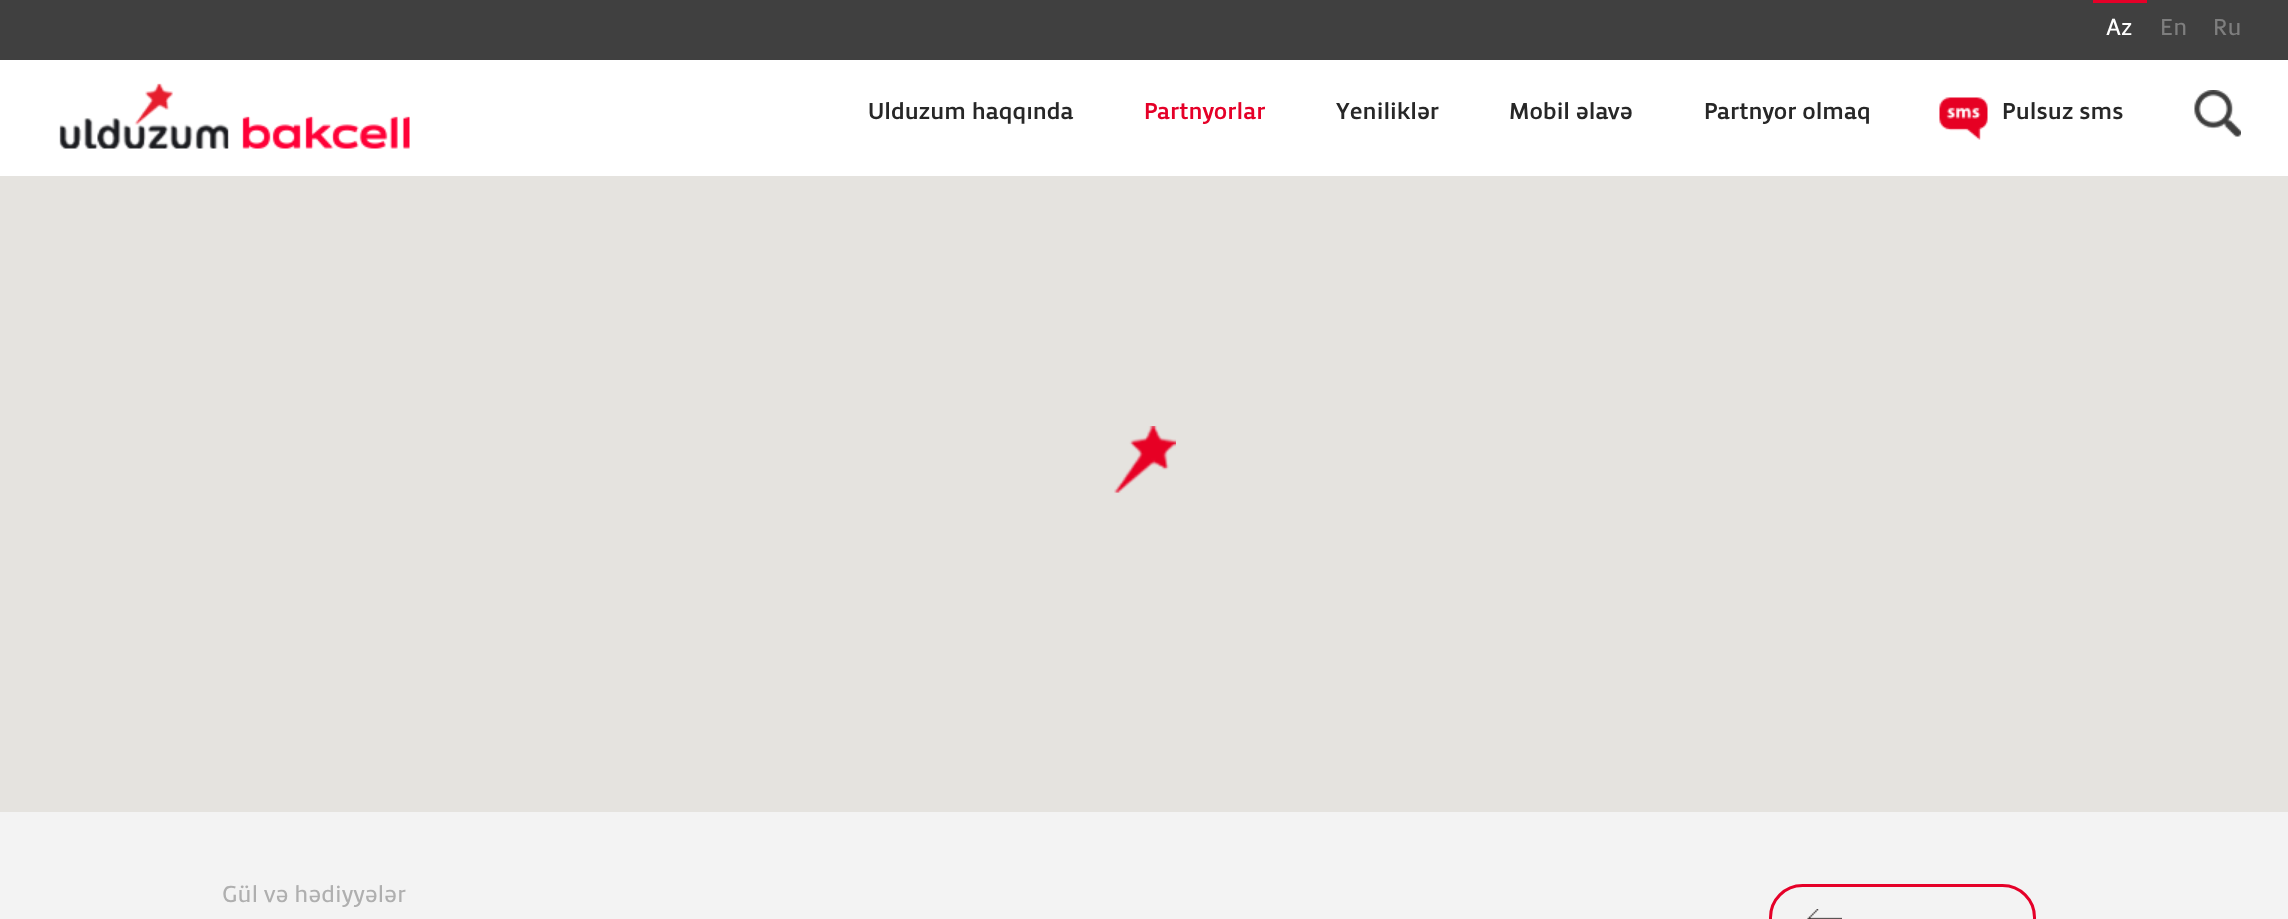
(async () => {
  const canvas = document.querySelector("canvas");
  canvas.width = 2288;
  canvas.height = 919;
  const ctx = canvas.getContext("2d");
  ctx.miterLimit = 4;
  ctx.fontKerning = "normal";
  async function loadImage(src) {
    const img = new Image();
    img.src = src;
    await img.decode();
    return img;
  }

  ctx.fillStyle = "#ffffff";
  ctx.fillRect(0, 0, 2288, 919);
  ctx.fillStyle = "#404040";
  ctx.fillRect(0, 0, 2288, 60);
  ctx.fillStyle = "#e50028";
  ctx.fillRect(2093, 0, 54, 3);
  ctx.drawImage(await loadImage("img/1.png"), 59, 83, 351, 66);
  ctx.drawImage(await loadImage("img/2.png"), 1939, 97, 49, 43);
  ctx.drawImage(await loadImage("img/3.png"), 2194, 90, 47, 47);
  ctx.fillStyle = "#f3f3f3";
  ctx.fillRect(0, 812, 2288, 107);
  ctx.fillStyle = "#e5e3df";
  ctx.fillRect(0, 176, 2288, 636);
  ctx.drawImage(await loadImage("img/4.png"), 1114, 426, 62, 67);
  ctx.beginPath();
  ctx.roundRect(1770.5, 885.5, 264, 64, 32);
  ctx.strokeStyle = "#e50028";
  ctx.lineWidth = 3;
  ctx.stroke();
  ctx.drawImage(await loadImage("img/5.png"), 1807, 909, 35, 10);
  ctx.font = "24px 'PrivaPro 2'";
  ctx.fillStyle = "#ffffff";
  ctx.fillText("Az", 2106, 35);
  ctx.fillStyle = "#7e7e7e";
  ctx.fillText("En", 2160, 35);
  ctx.fillText("Ru", 2213, 35);
  ctx.font = "24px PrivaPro";
  ctx.fillStyle = "#272727";
  ctx.fillText("Ulduzum haqqında", 868, 119);
  ctx.fillStyle = "#e50028";
  ctx.fillText("Partnyorlar", 1144, 119);
  ctx.fillStyle = "#272727";
  for (const [text, x, y] of [
    ["Yeniliklər", 1336, 119],
    ["Mobil əlavə", 1509, 119],
    ["Partnyor olmaq", 1704, 119],
    ["Pulsuz sms", 2002, 119],
  ]) {
    ctx.fillText(text, x, y);
  }
  ctx.font = "24px 'PrivaPro 2'";
  ctx.fillStyle = "#afafaf";
  ctx.fillText("Gül və hədiyyələr", 222, 902);
})();
